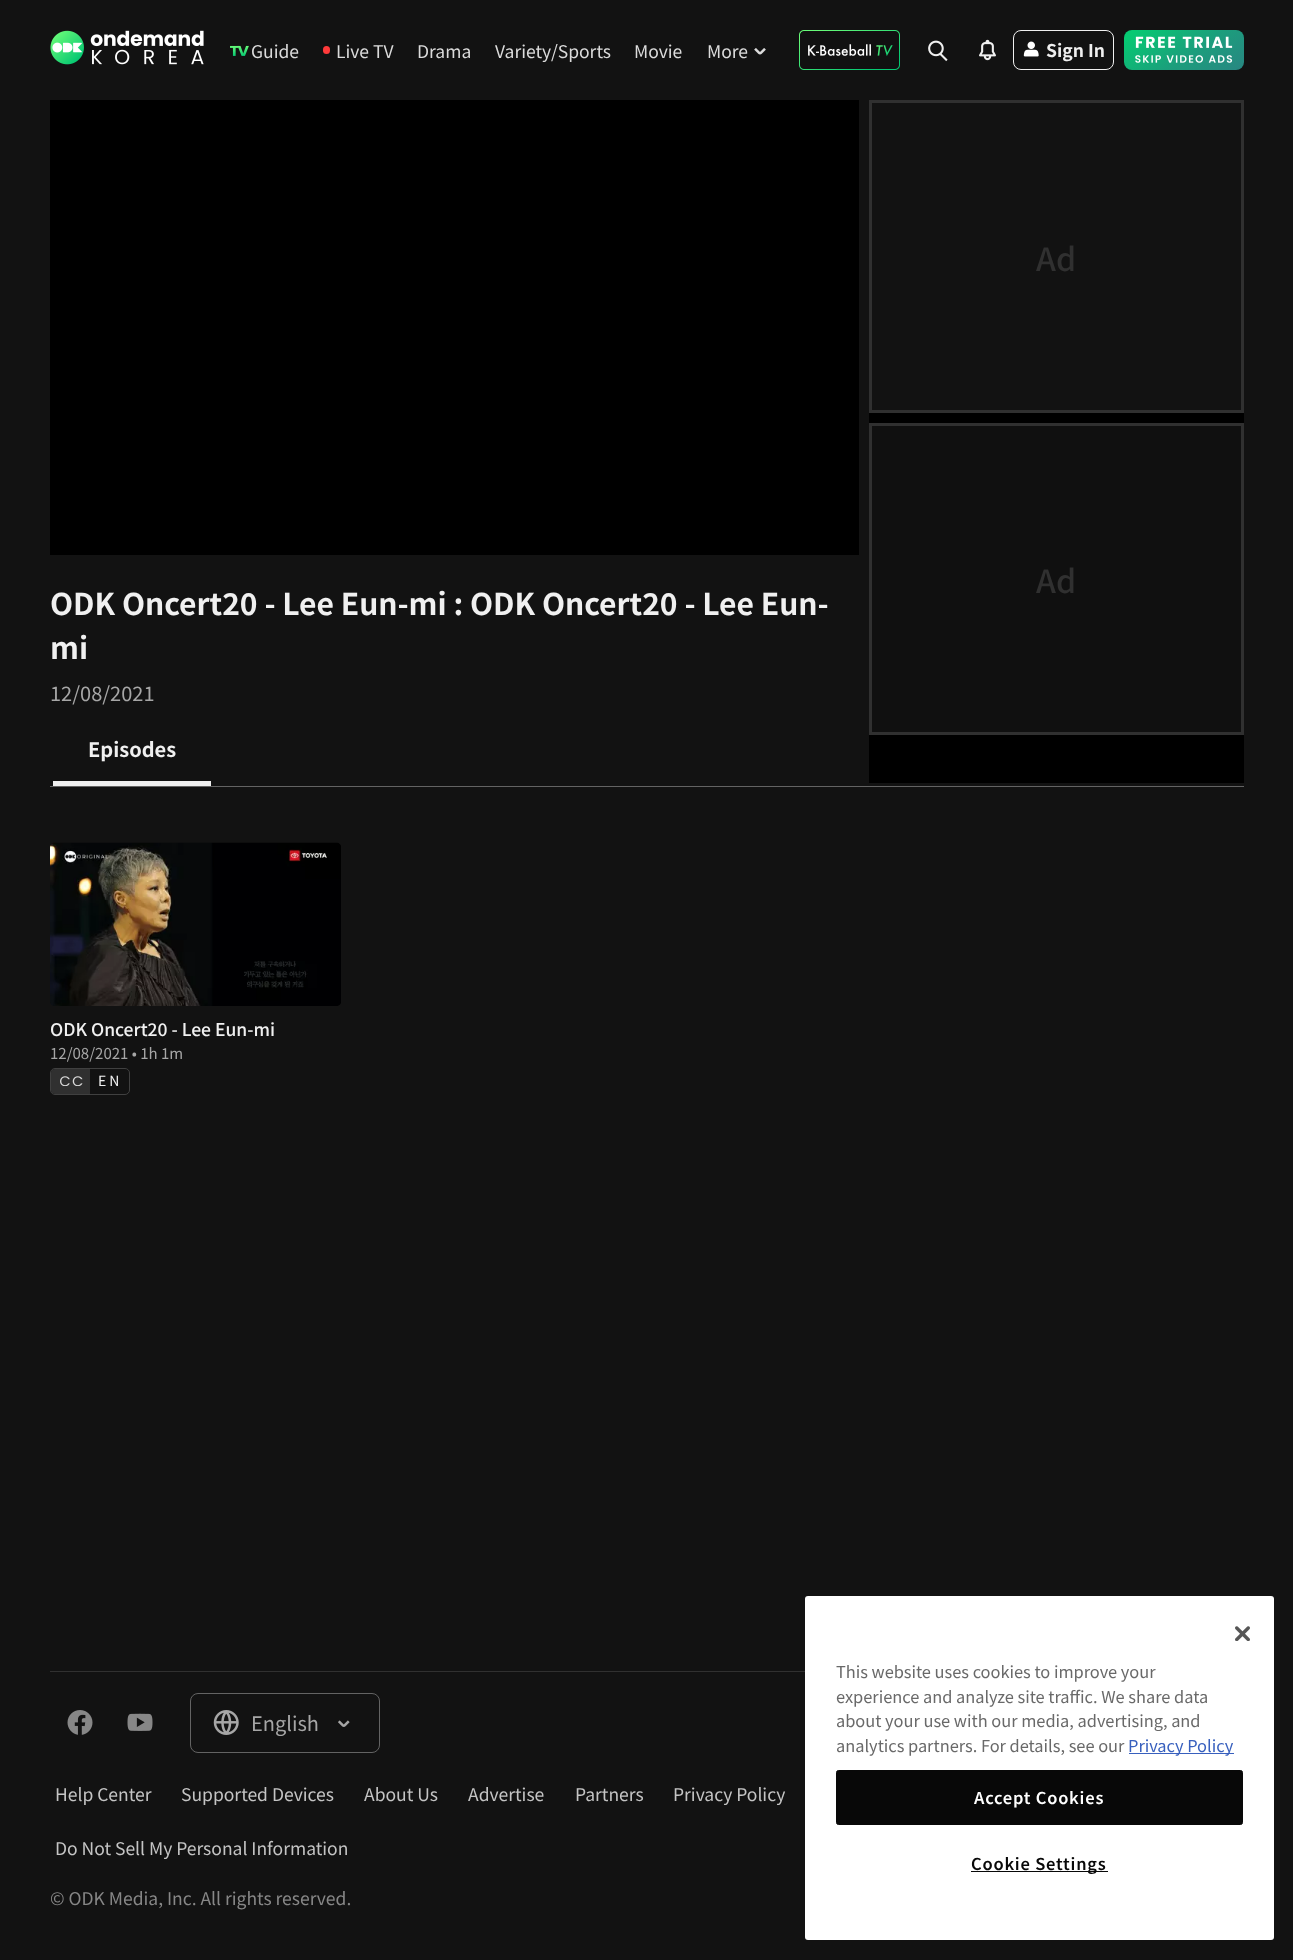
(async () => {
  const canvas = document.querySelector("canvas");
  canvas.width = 1293;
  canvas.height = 1960;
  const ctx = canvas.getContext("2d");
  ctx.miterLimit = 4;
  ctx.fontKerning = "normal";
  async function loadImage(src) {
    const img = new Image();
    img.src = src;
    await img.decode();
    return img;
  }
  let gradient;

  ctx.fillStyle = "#121212";
  ctx.fillRect(0, 0, 1293, 1960);
  ctx.drawImage(await loadImage("img/1.png"), 50, 30, 154, 35);
  ctx.drawImage(await loadImage("img/2.png"), 230, 45, 19, 11);
  ctx.fillStyle = "#ff3a3a";
  ctx.beginPath();
  ctx.roundRect(323, 46, 7, 8, 3.5);
  ctx.fill();
  ctx.drawImage(await loadImage("img/3.png"), 754, 48, 12, 7);
  ctx.drawImage(await loadImage("img/4.png"), 799, 30, 101, 40);
  ctx.drawImage(await loadImage("img/5.png"), 928, 40, 20, 22);
  ctx.drawImage(await loadImage("img/6.png"), 979, 39, 17, 22);
  ctx.beginPath();
  ctx.roundRect(1013.5, 30.5, 100, 39, 7.5);
  ctx.strokeStyle = "#f0f0f0";
  ctx.stroke();
  ctx.drawImage(await loadImage("img/7.png"), 1023, 41, 16, 16);
  gradient = ctx.createLinearGradient(1153, 8, 1214, 92);
  gradient.addColorStop(0.08, "#06c972");
  gradient.addColorStop(0.58, "#1c9d7c");
  gradient.addColorStop(0.99, "#288782");
  ctx.fillStyle = gradient;
  ctx.beginPath();
  ctx.roundRect(1124, 30, 120, 40, 8);
  ctx.fill();
  ctx.drawImage(await loadImage("img/8.png"), 1135, 36, 98, 27);
  ctx.fillStyle = "#000000";
  ctx.fillRect(869, 413, 375, 370);
  ctx.strokeStyle = "#303030";
  ctx.lineWidth = 3;
  ctx.strokeRect(870.5, 101.5, 372, 310);
  ctx.fillStyle = "#101010";
  ctx.fillRect(872, 426, 369, 306);
  ctx.strokeRect(870.5, 424.5, 372, 309);
  for (const [x, y, w, h, color] of [
    [50, 100, 809, 455, "#000000"],
    [50, 786, 1194, 1, "#636363"],
    [53, 781, 158, 5, "#f0f0f0"],
  ]) {
    ctx.fillStyle = color;
    ctx.fillRect(x, y, w, h);
  }
  ctx.drawImage(await loadImage("img/9.png"), 50, 842, 291, 164);
  ctx.beginPath();
  ctx.roundRect(50.5, 1068.5, 79, 26, 4.5);
  ctx.strokeStyle = "#404040";
  ctx.lineWidth = 1;
  ctx.stroke();
  ctx.fillStyle = "#303030";
  ctx.beginPath();
  ctx.roundRect(51, 1069, 39, 25, [4, 0, 0, 4]);
  ctx.fill();
  ctx.drawImage(await loadImage("img/10.png"), 60, 1076, 23, 10);
  ctx.fillRect(50, 1671, 755, 1);
  ctx.drawImage(await loadImage("img/11.png"), 67, 1710, 26, 25);
  ctx.drawImage(await loadImage("img/12.png"), 127, 1713, 26, 18);
  ctx.beginPath();
  ctx.roundRect(190.5, 1693.5, 189, 59, 7.5);
  ctx.strokeStyle = "#636363";
  ctx.stroke();
  ctx.drawImage(await loadImage("img/13.png"), 213, 1710, 26, 25);
  ctx.drawImage(await loadImage("img/14.png"), 338, 1720, 12, 7);
  ctx.fillStyle = "#ffffff";
  ctx.beginPath();
  ctx.roundRect(805, 1596, 469, 344, 3);
  ctx.fill();
  ctx.drawImage(await loadImage("img/15.png"), 1235, 1626, 15, 15);
  ctx.fillStyle = "#3860be";
  ctx.fillRect(1129, 1753, 105, 1);
  ctx.fillStyle = "#080808";
  ctx.beginPath();
  ctx.roundRect(836.5, 1770.5, 406, 54, 2);
  ctx.fill();
  ctx.strokeStyle = "#080808";
  ctx.stroke();
  ctx.fillRect(971, 1871, 137, 1);
  ctx.font = "17.5px Noto Sans KR";
  ctx.fillStyle = "#dbdbdb";
  for (const [text, x, y] of [
    ["Guide", 251, 58],
    ["Live TV", 336, 58],
    ["Drama", 417, 58],
    ["Variety/Sports", 495, 58],
    ["Movie", 634, 58],
    ["More", 707, 58],
  ]) {
    ctx.fillText(text, x, y);
  }
  ctx.font = "bold 17.5px Noto Sans KR";
  ctx.fillStyle = "#f0f0f0";
  ctx.fillText("Sign In", 1046, 57);
  ctx.font = "500 32px Noto Sans KR";
  ctx.fillStyle = "#303030";
  ctx.fillText("Ad", 1036, 271);
  ctx.fillText("Ad", 1036, 593);
  ctx.font = "bold 30px Noto Sans KR";
  ctx.fillStyle = "#f0f0f0";
  ctx.fillText("ODK Oncert20 - Lee Eun-mi : ODK Oncert20 - Lee Eun-", 50, 615);
  ctx.fillText("mi", 50, 659);
  ctx.font = "20px Noto Sans KR";
  ctx.fillStyle = "#a6a6a6";
  ctx.fillText("12/08/2021", 50, 701);
  ctx.font = "bold 20px Noto Sans KR";
  ctx.fillStyle = "#f0f0f0";
  ctx.fillText("Episodes", 88, 757);
  ctx.font = "500 17.5px Noto Sans KR";
  ctx.fillText("ODK Oncert20 - Lee Eun-mi", 50, 1036);
  ctx.font = "15px Noto Sans KR";
  ctx.fillStyle = "#a6a6a6";
  ctx.fillText("12/08/2021 • 1h 1m", 50, 1059);
  ctx.letterSpacing = "3px";
  ctx.font = "14px Noto Sans KR";
  ctx.fillStyle = "#f0f0f0";
  ctx.fillText("EN", 98, 1086);
  ctx.letterSpacing = "0px";
  ctx.font = "20px Noto Sans KR";
  ctx.fillStyle = "#a6a6a6";
  ctx.fillText("English", 251, 1731);
  ctx.font = "17.5px Noto Sans KR";
  ctx.fillStyle = "#c4c4c4";
  for (const [text, x, y] of [
    ["Help Center", 55, 1801],
    ["Supported Devices", 181, 1801],
    ["About Us", 364, 1801],
    ["Advertise", 468, 1801],
    ["Partners", 575, 1801],
    ["Privacy Policy", 673, 1801],
    ["Do Not Sell My Personal Information", 55, 1855],
  ]) {
    ctx.fillText(text, x, y);
  }
  ctx.fillStyle = "#878787";
  ctx.fillText("© ODK Media, Inc. All rights reserved.", 50, 1905);
  ctx.font = "16.4px 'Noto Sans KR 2'";
  ctx.fillStyle = "#696969";
  for (const [text, x, y] of [
    ["This website uses cookies to improve your", 836, 1678],
    ["experience and analyze site traffic. We share data", 836, 1703],
    ["about your use with our media, advertising, and", 836, 1727],
    ["analytics partners. For details, see our", 836, 1752],
  ]) {
    ctx.fillText(text, x, y);
  }
  ctx.fillStyle = "#3860be";
  ctx.fillText("Privacy Policy", 1128, 1752);
  ctx.letterSpacing = "0.8px";
  ctx.font = "600 16.4px Noto Sans KR";
  ctx.fillStyle = "#ffffff";
  ctx.fillText("Accept Cookies", 974, 1804);
  ctx.fillStyle = "#080808";
  ctx.fillText("Cookie Settings", 971, 1870);
})();
